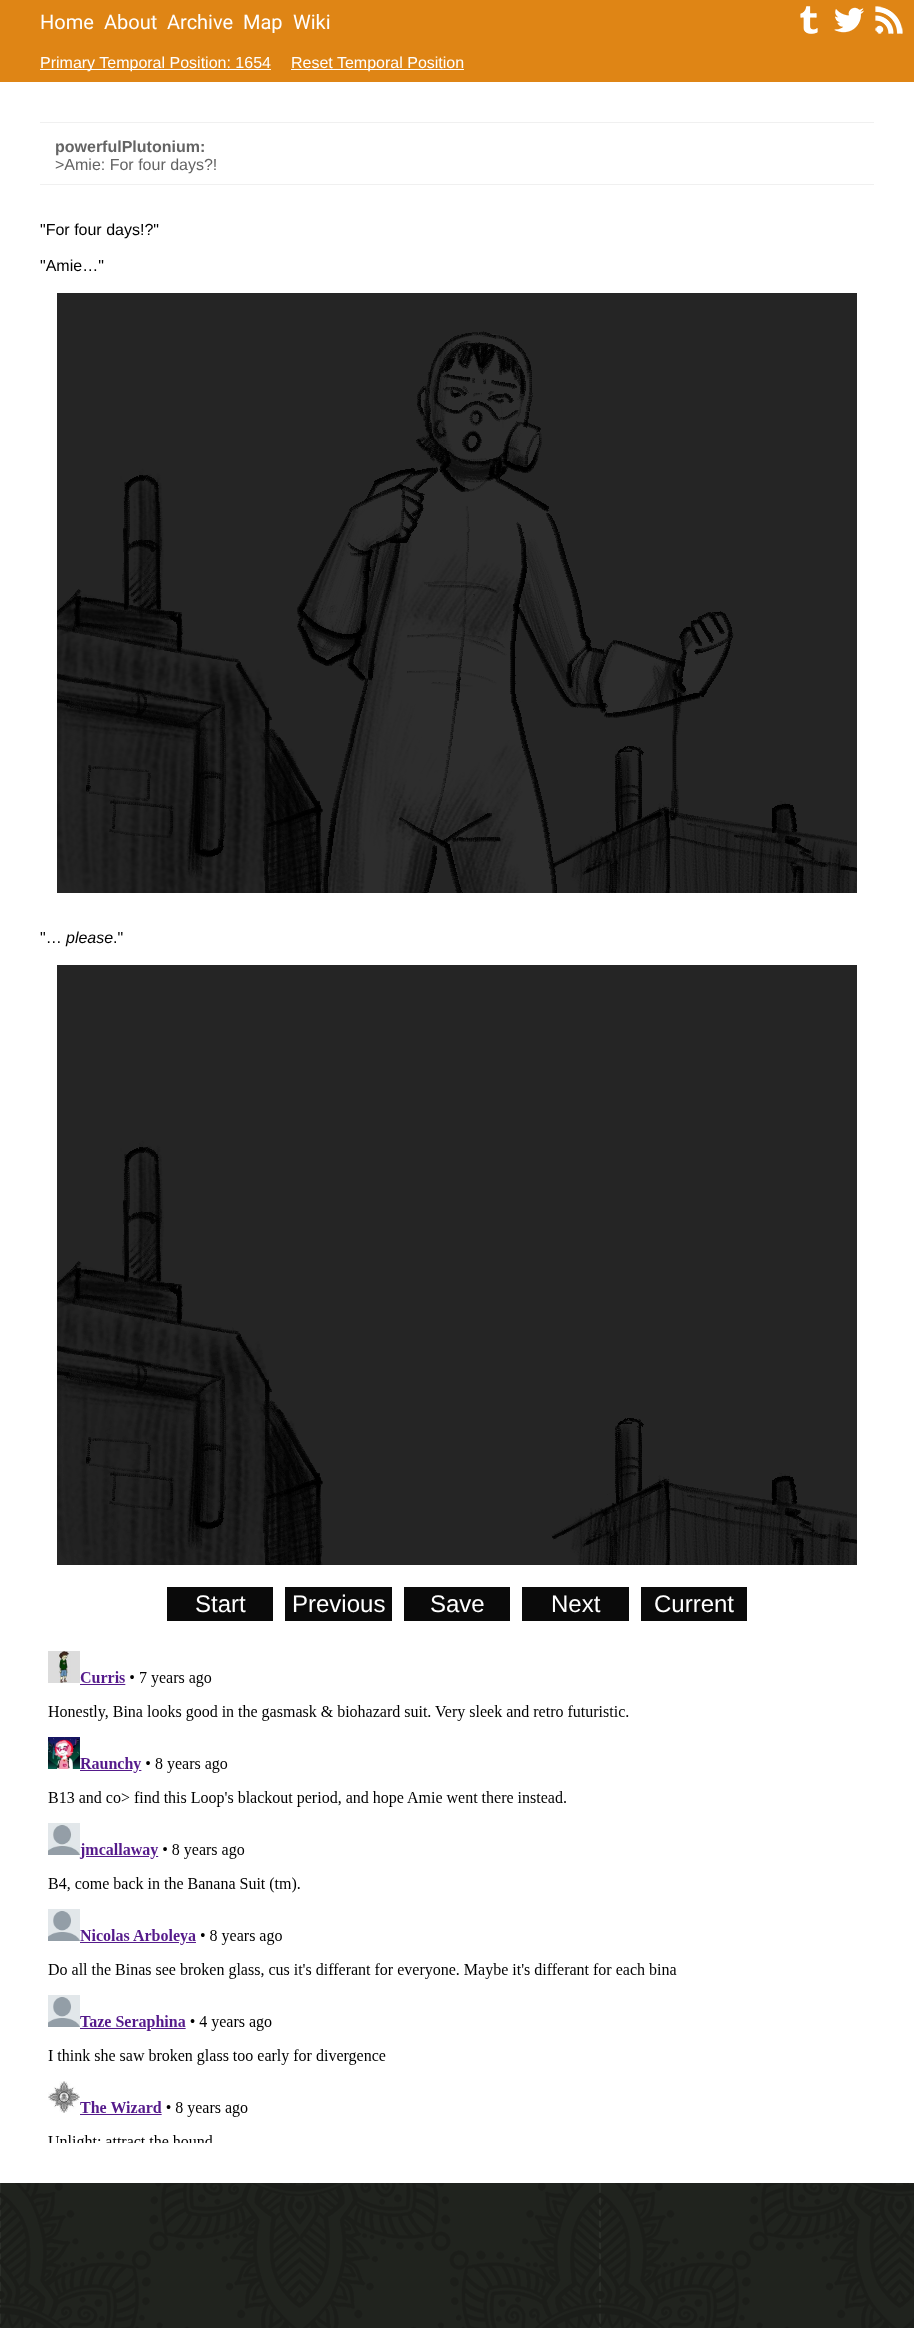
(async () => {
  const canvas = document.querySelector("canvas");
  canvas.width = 914;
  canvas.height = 2328;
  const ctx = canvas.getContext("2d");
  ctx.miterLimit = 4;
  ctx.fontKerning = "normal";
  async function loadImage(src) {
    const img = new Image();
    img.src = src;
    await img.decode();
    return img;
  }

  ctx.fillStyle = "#ffffff";
  ctx.fillRect(0, 0, 914, 2328);
  ctx.drawImage(await loadImage("img/1.png"), 0, 2183, 914, 145);
  ctx.fillStyle = "#df8515";
  ctx.fillRect(0, 0, 914, 82);
  ctx.drawImage(await loadImage("img/2.png"), 800, 6, 18, 28);
  ctx.drawImage(await loadImage("img/3.png"), 834, 7, 30, 26);
  ctx.drawImage(await loadImage("img/4.png"), 875, 6, 28, 28);
  for (const [x, y, w, h, color] of [
    [40, 69, 231, 1, "#ffffff"],
    [291, 69, 173, 1, "#ffffff"],
    [40, 122, 834, 1, "#f0f0f0"],
    [40, 184, 834, 1, "#f0f0f0"],
  ]) {
    ctx.fillStyle = color;
    ctx.fillRect(x, y, w, h);
  }
  ctx.drawImage(await loadImage("img/5.png"), 57, 293, 800, 600);
  ctx.drawImage(await loadImage("img/6.png"), 57, 965, 800, 600);
  for (const [x, y, w, h, color] of [
    [167, 1587, 106, 34, "#0a0a0a"],
    [285, 1587, 107, 34, "#0a0a0a"],
    [404, 1587, 106, 34, "#0a0a0a"],
    [522, 1587, 107, 34, "#0a0a0a"],
    [641, 1587, 106, 34, "#0a0a0a"],
  ]) {
    ctx.fillStyle = color;
    ctx.fillRect(x, y, w, h);
  }
  ctx.drawImage(await loadImage("img/7.png"), 48, 1651, 629, 492);
  ctx.font = "20px Roboto";
  ctx.fillStyle = "#ffffff";
  for (const [text, x, y] of [
    ["Home", 40, 29],
    ["About", 104, 29],
    ["Archive", 167, 29],
    ["Map", 243, 29],
    ["Wiki", 293, 29],
  ]) {
    ctx.fillText(text, x, y);
  }
  ctx.font = "16px Liberation Sans";
  ctx.fillText("Primary Temporal Position: 1654", 40, 68);
  ctx.fillText("Reset Temporal Position", 291, 68);
  ctx.font = "bold 16px Liberation Sans";
  ctx.fillStyle = "#646464";
  ctx.fillText("powerfulPlutonium:", 55, 152);
  ctx.font = "16px Liberation Sans";
  ctx.fillText(">Amie: For four days?!", 55, 170);
  ctx.fillStyle = "#000000";
  for (const [text, x, y] of [
    ["\"For four days!?\"", 40, 235],
    ["\"Amie…\"", 40, 271],
    ["\"…", 40, 943],
  ]) {
    ctx.fillText(text, x, y);
  }
  ctx.font = "italic 16px Liberation Sans";
  ctx.fillText("please", 66, 943);
  ctx.font = "16px Liberation Sans";
  ctx.fillText(".\"", 113, 943);
  ctx.font = "24px Liberation Sans";
  ctx.fillStyle = "#ffffff";
  for (const [text, x, y] of [
    ["Start", 195, 1612],
    ["Previous", 292, 1612],
    ["Save", 430, 1612],
    ["Next", 551, 1612],
    ["Current", 654, 1612],
  ]) {
    ctx.fillText(text, x, y);
  }
})();
